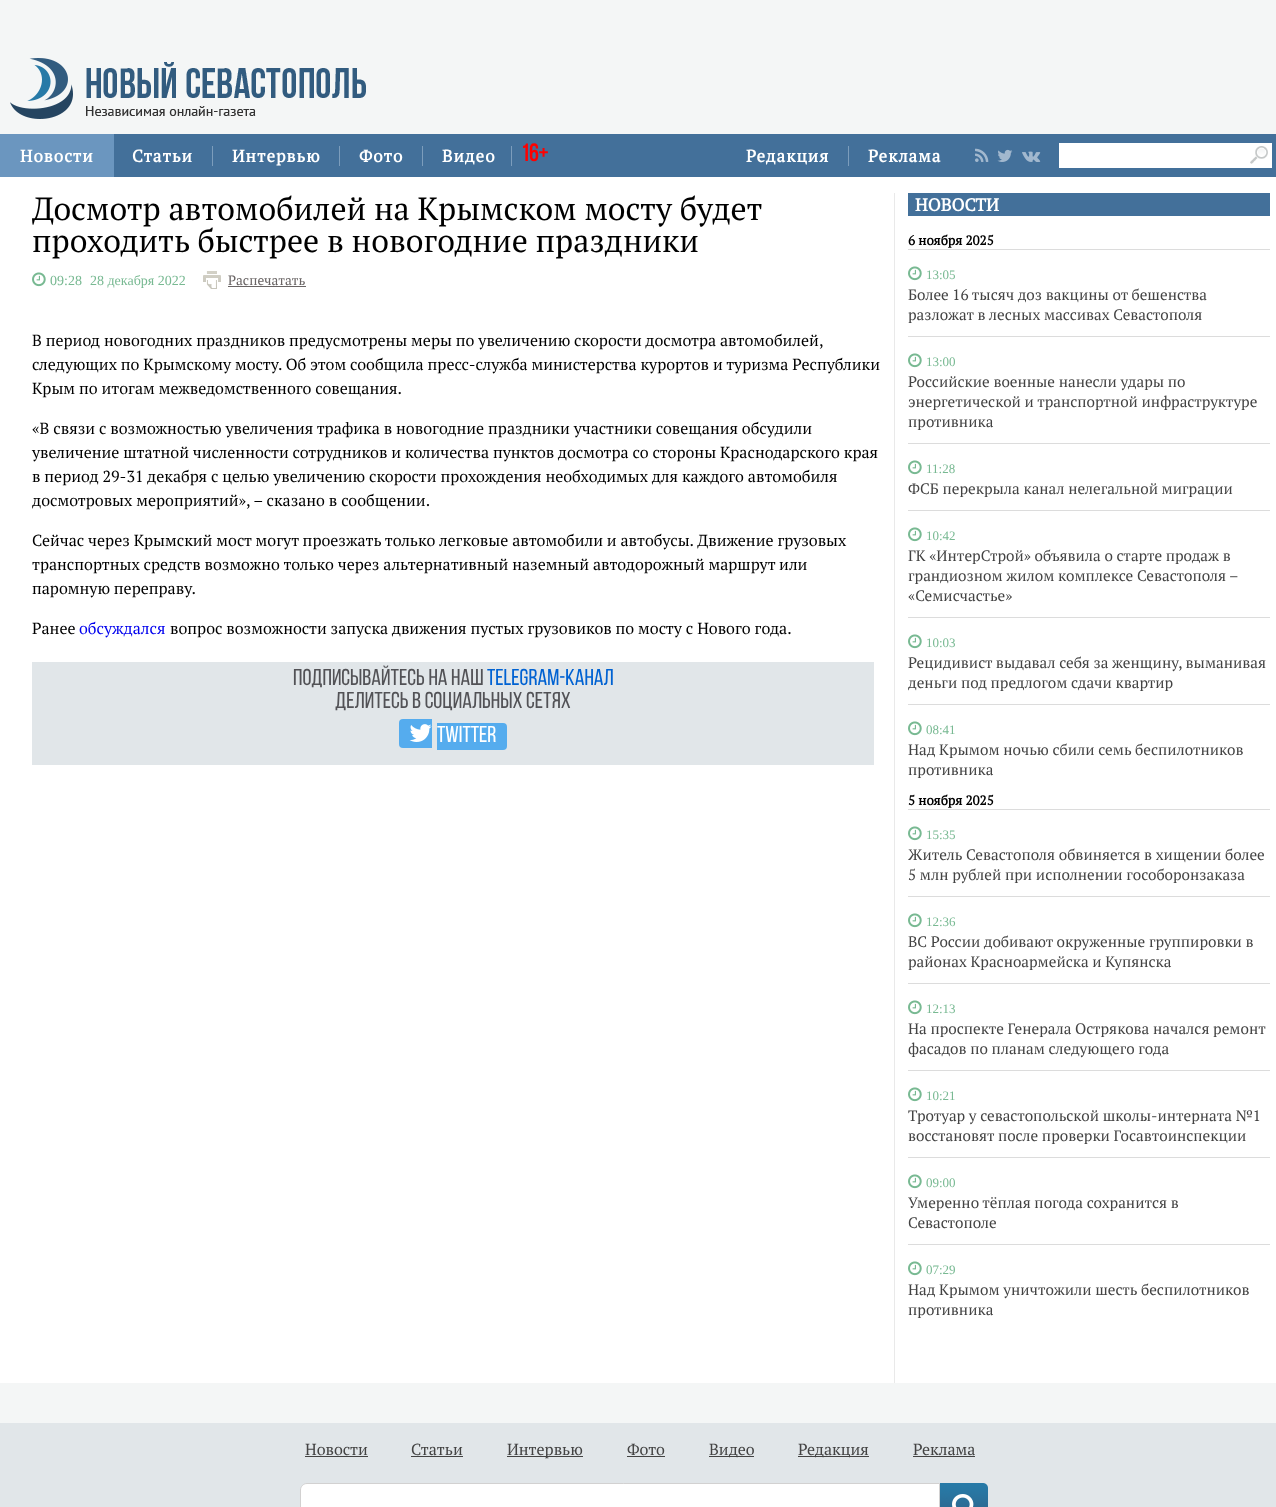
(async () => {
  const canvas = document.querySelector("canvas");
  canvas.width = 1276;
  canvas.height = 1507;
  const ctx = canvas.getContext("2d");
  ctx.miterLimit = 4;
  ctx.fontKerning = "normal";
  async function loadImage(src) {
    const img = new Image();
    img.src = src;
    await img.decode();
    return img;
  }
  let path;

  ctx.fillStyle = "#f4f6f6";
  ctx.fillRect(0, 0, 1276, 1507);
  ctx.drawImage(await loadImage("img/1.png"), 10, 58, 356, 61);
  for (const [x, y, w, h, color] of [
    [114, 134, 1162, 43, "#43709a"],
    [0, 134, 114, 43, "#6b96bf"],
    [212, 146, 1, 20, "#7c9dbc"],
    [339, 146, 1, 20, "#7c9dbc"],
    [422, 146, 1, 20, "#7c9dbc"],
    [511, 146, 1, 20, "#7c9dbc"],
    [848, 146, 1, 20, "#7c9dbc"],
  ]) {
    ctx.fillStyle = color;
    ctx.fillRect(x, y, w, h);
  }
  ctx.drawImage(await loadImage("img/2.png"), 975, 148, 14, 14);
  ctx.drawImage(await loadImage("img/3.png"), 997, 149, 16, 13);
  ctx.drawImage(await loadImage("img/4.png"), 1022, 151, 19, 11);
  ctx.fillStyle = "#ffffff";
  ctx.fillRect(1059, 143, 213, 25);
  ctx.drawImage(await loadImage("img/5.png"), 1250, 146, 18, 18);
  ctx.fillRect(0, 177, 1276, 1206);
  ctx.drawImage(await loadImage("img/6.png"), 32, 272, 14, 15);
  ctx.drawImage(await loadImage("img/7.png"), 203, 271, 18, 18);
  ctx.fillStyle = "#696464";
  ctx.fillRect(228, 286, 78, 1);
  ctx.fillStyle = "#e1e6e9";
  ctx.fillRect(32, 662, 842, 103);
  ctx.fillStyle = "#55acee";
  ctx.beginPath();
  ctx.roundRect(399, 719, 33, 29, [4, 0, 0, 4]);
  ctx.fill();
  ctx.beginPath();
  ctx.roundRect(437, 723, 70, 27, [0, 4, 4, 0]);
  ctx.fill();
  ctx.drawImage(await loadImage("img/8.png"), 409, 724, 23, 18);
  for (const [x, y, w, h, color] of [
    [894, 193, 1, 1190, "#e9e9e9"],
    [908, 193, 362, 23, "#43709a"],
    [908, 249, 362, 1, "#dcdcdc"],
  ]) {
    ctx.fillStyle = color;
    ctx.fillRect(x, y, w, h);
  }
  ctx.drawImage(await loadImage("img/6.png"), 908, 266, 14, 15);
  ctx.fillRect(908, 336, 362, 1);
  ctx.drawImage(await loadImage("img/6.png"), 908, 353, 14, 15);
  ctx.fillRect(908, 443, 362, 1);
  ctx.drawImage(await loadImage("img/6.png"), 908, 460, 14, 15);
  ctx.fillRect(908, 510, 362, 1);
  ctx.drawImage(await loadImage("img/6.png"), 908, 527, 14, 15);
  ctx.fillRect(908, 617, 362, 1);
  ctx.drawImage(await loadImage("img/6.png"), 908, 634, 14, 15);
  ctx.fillRect(908, 704, 362, 1);
  ctx.drawImage(await loadImage("img/6.png"), 908, 721, 14, 15);
  ctx.fillRect(908, 809, 362, 1);
  ctx.drawImage(await loadImage("img/6.png"), 908, 826, 14, 15);
  ctx.fillRect(908, 896, 362, 1);
  ctx.drawImage(await loadImage("img/6.png"), 908, 913, 14, 15);
  ctx.fillRect(908, 983, 362, 1);
  ctx.drawImage(await loadImage("img/6.png"), 908, 1000, 14, 15);
  ctx.fillRect(908, 1070, 362, 1);
  ctx.drawImage(await loadImage("img/6.png"), 908, 1087, 14, 15);
  ctx.fillRect(908, 1157, 362, 1);
  ctx.drawImage(await loadImage("img/6.png"), 908, 1174, 14, 15);
  ctx.fillRect(908, 1244, 362, 1);
  ctx.drawImage(await loadImage("img/6.png"), 908, 1261, 14, 15);
  for (const [x, y, w, h, color] of [
    [0, 1423, 1276, 84, "#e1e6e9"],
    [305, 1456, 63, 1, "#434343"],
    [411, 1456, 52, 1, "#434343"],
    [507, 1456, 76, 1, "#434343"],
    [627, 1456, 38, 1, "#434343"],
    [709, 1456, 45, 1, "#434343"],
    [798, 1456, 71, 1, "#434343"],
    [913, 1456, 62, 1, "#434343"],
  ]) {
    ctx.fillStyle = color;
    ctx.fillRect(x, y, w, h);
  }
  ctx.fillStyle = "#ffffff";
  path = new Path2D("M307 1483.5H939.5V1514.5H307C303.5 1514.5 300.5 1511.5 300.5 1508V1490C300.5 1486.5 303.5 1483.5 307 1483.5Z");
  ctx.fill(path);
  ctx.strokeStyle = "#d2d1d1";
  ctx.stroke(path);
  ctx.drawImage(await loadImage("img/9.png"), 940, 1483, 48, 24);
  ctx.letterSpacing = "1px";
  ctx.font = "bold 17px PT Serif";
  for (const [text, x, y] of [
    ["Новости", 20, 162],
    ["Статьи", 132, 162],
    ["Интервью", 232, 162],
    ["Фото", 359, 162],
    ["Видео", 442, 162],
  ]) {
    ctx.fillText(text, x, y);
  }
  ctx.letterSpacing = "0px";
  ctx.font = "bold 24px Bebas Neue";
  ctx.fillStyle = "#ff0000";
  ctx.fillText("16+", 521, 161);
  ctx.letterSpacing = "1px";
  ctx.font = "bold 17px PT Serif";
  ctx.fillStyle = "#ffffff";
  ctx.fillText("Редакция", 746, 162);
  ctx.fillText("Реклама", 868, 162);
  ctx.letterSpacing = "0px";
  ctx.font = "32px PT Serif";
  ctx.fillStyle = "#000000";
  ctx.fillText("Досмотр автомобилей на Крымском мосту будет", 32, 220);
  ctx.fillText("проходить быстрее в новогодние праздники", 32, 252);
  ctx.font = "14px Liberation Serif";
  ctx.fillStyle = "#78b992";
  ctx.fillText("09:28", 50, 285);
  ctx.fillText("28 декабря 2022", 90, 285);
  ctx.font = "13.5px PT Serif";
  ctx.fillStyle = "#696464";
  ctx.fillText("Распечатать", 228, 285);
  ctx.font = "16px PT Serif";
  ctx.fillStyle = "#000000";
  for (const [text, x, y] of [
    ["В период новогодних праздников предусмотрены меры по увеличению скорости досмотра автомобилей,", 32, 346],
    ["следующих по Крымскому мосту. Об этом сообщила пресс-служба министерства курортов и туризма Республики", 32, 370],
    ["Крым по итогам межведомственного совещания.", 32, 394],
    ["«В связи с возможностью увеличения трафика в новогодние праздники участники совещания обсудили", 32, 434],
    ["увеличение штатной численности сотрудников и количества пунктов досмотра со стороны Краснодарского края", 32, 458],
    ["в период 29-31 декабря с целью увеличению скорости прохождения необходимых для каждого автомобиля", 32, 482],
    ["досмотровых мероприятий», – сказано в сообщении.", 32, 506],
    ["Сейчас через Крымский мост могут проезжать только легковые автомобили и автобусы. Движение грузовых", 32, 546],
    ["транспортных средств возможно только через альтернативный наземный автодорожный маршрут или", 32, 570],
    ["паромную переправу.", 32, 594],
    ["Ранее", 32, 634],
  ]) {
    ctx.fillText(text, x, y);
  }
  ctx.fillStyle = "#0000ee";
  ctx.fillText("обсуждался", 79, 634);
  ctx.fillStyle = "#000000";
  ctx.fillText("вопрос возможности запуска движения пустых грузовиков по мосту с Нового года.", 170, 634);
  ctx.font = "23px Bebas Neue";
  ctx.fillStyle = "#525256";
  ctx.fillText("Подписывайтесь на наш", 293, 685);
  ctx.fillStyle = "#0062d2";
  ctx.fillText("telegram-канал", 487, 685);
  ctx.fillStyle = "#525256";
  ctx.fillText("Делитесь в социальных сетях", 335, 708);
  ctx.fillStyle = "#ffffff";
  ctx.fillText("TWITTER", 437, 742);
  ctx.font = "bold 17.5px PT Serif";
  ctx.fillText("НОВОСТИ", 915, 211);
  ctx.font = "bold 13.25px PT Serif";
  ctx.fillStyle = "#000000";
  ctx.fillText("6 ноября 2025", 908, 245);
  ctx.font = "13px Liberation Serif";
  ctx.fillStyle = "#78b992";
  ctx.fillText("13:05", 926, 279);
  ctx.font = "15.2px PT Serif";
  ctx.fillStyle = "#434343";
  ctx.fillText("Более 16 тысяч доз вакцины от бешенства", 908, 300);
  ctx.fillText("разложат в лесных массивах Севастополя", 908, 320);
  ctx.font = "13px Liberation Serif";
  ctx.fillStyle = "#78b992";
  ctx.fillText("13:00", 926, 366);
  ctx.font = "15.2px PT Serif";
  ctx.fillStyle = "#434343";
  for (const [text, x, y] of [
    ["Российские военные нанесли удары по", 908, 387],
    ["энергетической и транспортной инфраструктуре", 908, 407],
    ["противника", 908, 427],
  ]) {
    ctx.fillText(text, x, y);
  }
  ctx.font = "13px Liberation Serif";
  ctx.fillStyle = "#78b992";
  ctx.fillText("11:28", 926, 473);
  ctx.font = "15.2px PT Serif";
  ctx.fillStyle = "#434343";
  ctx.fillText("ФСБ перекрыла канал нелегальной миграции", 908, 494);
  ctx.font = "13px Liberation Serif";
  ctx.fillStyle = "#78b992";
  ctx.fillText("10:42", 926, 540);
  ctx.font = "15.2px PT Serif";
  ctx.fillStyle = "#434343";
  for (const [text, x, y] of [
    ["ГК «ИнтерСтрой» объявила о старте продаж в", 908, 561],
    ["грандиозном жилом комплексе Севастополя –", 908, 581],
    ["«Семисчастье»", 908, 601],
  ]) {
    ctx.fillText(text, x, y);
  }
  ctx.font = "13px Liberation Serif";
  ctx.fillStyle = "#78b992";
  ctx.fillText("10:03", 926, 647);
  ctx.font = "15.2px PT Serif";
  ctx.fillStyle = "#434343";
  ctx.fillText("Рецидивист выдавал себя за женщину, выманивая", 908, 668);
  ctx.fillText("деньги под предлогом сдачи квартир", 908, 688);
  ctx.font = "13px Liberation Serif";
  ctx.fillStyle = "#78b992";
  ctx.fillText("08:41", 926, 734);
  ctx.font = "15.2px PT Serif";
  ctx.fillStyle = "#434343";
  ctx.fillText("Над Крымом ночью сбили семь беспилотников", 908, 755);
  ctx.fillText("противника", 908, 775);
  ctx.font = "bold 13.25px PT Serif";
  ctx.fillStyle = "#000000";
  ctx.fillText("5 ноября 2025", 908, 805);
  ctx.font = "13px Liberation Serif";
  ctx.fillStyle = "#78b992";
  ctx.fillText("15:35", 926, 839);
  ctx.font = "15.2px PT Serif";
  ctx.fillStyle = "#434343";
  ctx.fillText("Житель Севастополя обвиняется в хищении более", 908, 860);
  ctx.fillText("5 млн рублей при исполнении гособоронзаказа", 908, 880);
  ctx.font = "13px Liberation Serif";
  ctx.fillStyle = "#78b992";
  ctx.fillText("12:36", 926, 926);
  ctx.font = "15.2px PT Serif";
  ctx.fillStyle = "#434343";
  ctx.fillText("ВС России добивают окруженные группировки в", 908, 947);
  ctx.fillText("районах Красноармейска и Купянска", 908, 967);
  ctx.font = "13px Liberation Serif";
  ctx.fillStyle = "#78b992";
  ctx.fillText("12:13", 926, 1013);
  ctx.font = "15.2px PT Serif";
  ctx.fillStyle = "#434343";
  ctx.fillText("На проспекте Генерала Острякова начался ремонт", 908, 1034);
  ctx.fillText("фасадов по планам следующего года", 908, 1054);
  ctx.font = "13px Liberation Serif";
  ctx.fillStyle = "#78b992";
  ctx.fillText("10:21", 926, 1100);
  ctx.font = "15.2px PT Serif";
  ctx.fillStyle = "#434343";
  ctx.fillText("Тротуар у севастопольской школы-интерната №1", 908, 1121);
  ctx.fillText("восстановят после проверки Госавтоинспекции", 908, 1141);
  ctx.font = "13px Liberation Serif";
  ctx.fillStyle = "#78b992";
  ctx.fillText("09:00", 926, 1187);
  ctx.font = "15.2px PT Serif";
  ctx.fillStyle = "#434343";
  ctx.fillText("Умеренно тёплая погода сохранится в", 908, 1208);
  ctx.fillText("Севастополе", 908, 1228);
  ctx.font = "13px Liberation Serif";
  ctx.fillStyle = "#78b992";
  ctx.fillText("07:29", 926, 1274);
  ctx.font = "15.2px PT Serif";
  ctx.fillStyle = "#434343";
  ctx.fillText("Над Крымом уничтожили шесть беспилотников", 908, 1295);
  ctx.fillText("противника", 908, 1315);
  ctx.font = "16px PT Serif";
  for (const [text, x, y] of [
    ["Новости", 305, 1455],
    ["Статьи", 411, 1455],
    ["Интервью", 507, 1455],
    ["Фото", 627, 1455],
    ["Видео", 709, 1455],
    ["Редакция", 798, 1455],
    ["Реклама", 913, 1455],
  ]) {
    ctx.fillText(text, x, y);
  }
})();
